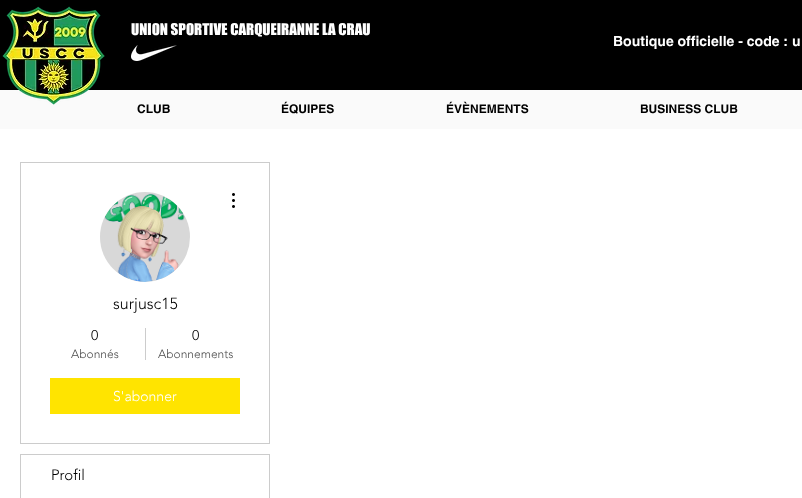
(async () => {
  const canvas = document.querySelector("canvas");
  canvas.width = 802;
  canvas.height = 498;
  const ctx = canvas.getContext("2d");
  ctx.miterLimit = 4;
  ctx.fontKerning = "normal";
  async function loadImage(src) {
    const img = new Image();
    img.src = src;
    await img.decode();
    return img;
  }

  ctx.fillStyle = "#ffffff";
  ctx.fillRect(0, 0, 802, 498);
  ctx.fillStyle = "#000000";
  ctx.fillRect(0, 0, 802, 90);
  ctx.fillStyle = "#fafafa";
  ctx.fillRect(0, 90, 802, 39);
  ctx.drawImage(await loadImage("img/1.png"), 2, 6, 103, 99);
  ctx.drawImage(await loadImage("img/2.png"), 131, 45, 46, 16);
  ctx.strokeStyle = "#cccccc";
  ctx.strokeRect(20.5, 162.5, 249, 281);
  ctx.fillStyle = "#d8d8d8";
  ctx.beginPath();
  ctx.arc(145, 237, 45, 0, Math.PI * 2);
  ctx.fill();
  ctx.drawImage(await loadImage("img/3.png"), 104, 193, 81, 89);
  ctx.drawImage(await loadImage("img/4.png"), 232, 193, 3, 15);
  ctx.fillStyle = "#cccccc";
  ctx.fillRect(145, 328, 1, 32);
  ctx.fillStyle = "#ffe400";
  ctx.fillRect(50, 378, 190, 36);
  ctx.strokeRect(20.5, 454.5, 249, 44);
  ctx.font = "15px 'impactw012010'";
  ctx.fillStyle = "#ffffff";
  ctx.fillText("UNION SPORTIVE CARQUEIRANNE LA CRAU", 131, 35);
  ctx.font = "bold 14px helvetica";
  ctx.fillText("Boutique officielle - code : u", 613, 46);
  ctx.font = "bold 12px helvetica";
  ctx.fillStyle = "#000000";
  for (const [text, x, y] of [
    ["CLUB", 137, 113],
    ["ÉQUIPES", 281, 113],
    ["ÉVÈNEMENTS", 446, 113],
    ["BUSINESS CLUB", 640, 113],
  ]) {
    ctx.fillText(text, x, y);
  }
  ctx.font = "300 16px 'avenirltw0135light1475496'";
  ctx.fillText("surjusc15", 113, 309);
  ctx.font = "300 14px 'avenirltw0135light1475496'";
  ctx.fillText("0", 91, 340);
  ctx.font = "300 12px 'avenirltw0135light1475496'";
  ctx.fillStyle = "#4d4d4d";
  ctx.fillText("Abonnés", 71, 358);
  ctx.font = "300 14px 'avenirltw0135light1475496'";
  ctx.fillStyle = "#000000";
  ctx.fillText("0", 192, 340);
  ctx.font = "300 12px 'avenirltw0135light1475496'";
  ctx.fillStyle = "#4d4d4d";
  ctx.fillText("Abonnements", 158, 358);
  ctx.font = "300 14px 'avenirltw0135light1475496'";
  ctx.fillStyle = "#ffffff";
  ctx.fillText("S'abonner", 113, 401);
  ctx.font = "300 15px 'avenirltw0135light1475496'";
  ctx.fillStyle = "#000000";
  ctx.fillText("Profil", 51, 480);
})();
